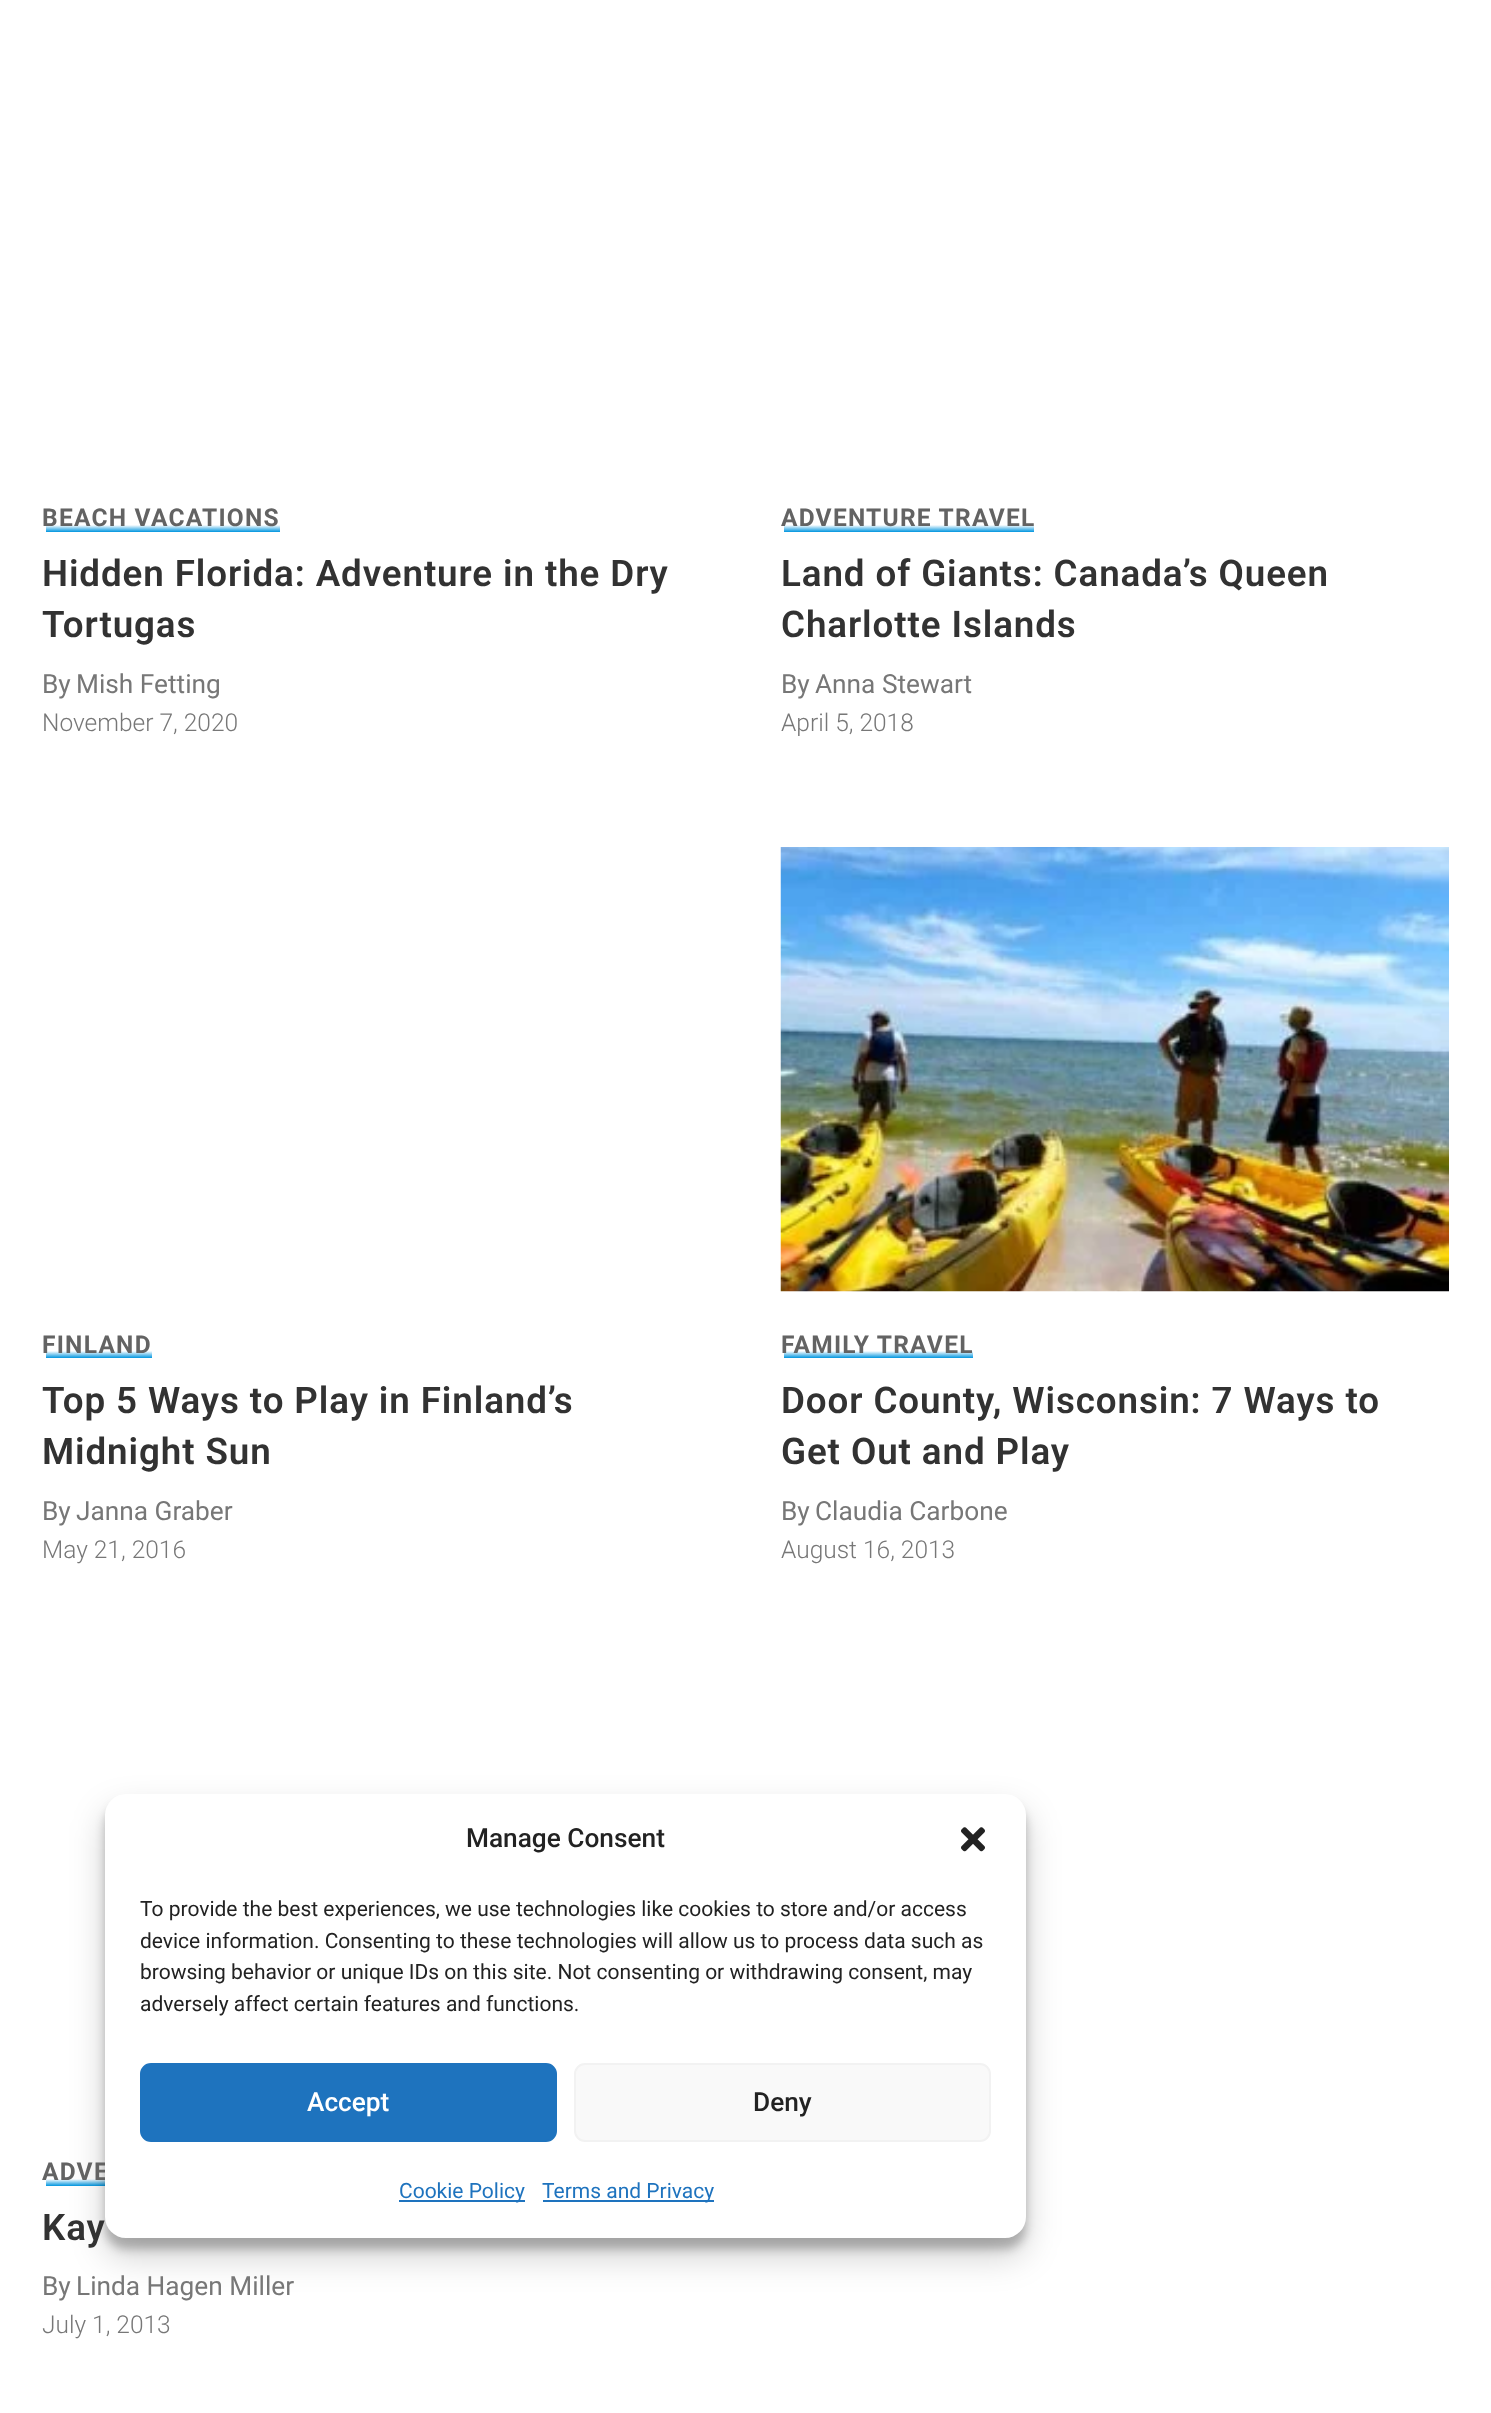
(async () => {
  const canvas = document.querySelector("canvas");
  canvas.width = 1491;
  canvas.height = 2413;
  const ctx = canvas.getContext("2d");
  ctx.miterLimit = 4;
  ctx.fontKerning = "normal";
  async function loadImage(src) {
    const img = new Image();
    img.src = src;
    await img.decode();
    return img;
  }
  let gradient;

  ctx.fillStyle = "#ffffff";
  ctx.fillRect(0, 0, 1491, 2413);
  gradient = ctx.createLinearGradient(165, 518, 165, 532);
  gradient.addColorStop(0, "#ffffff");
  gradient.addColorStop(0.5, "#ffffff");
  gradient.addColorStop(1, "#0095df");
  ctx.fillStyle = gradient;
  ctx.fillRect(46, 525, 234, 7);
  gradient = ctx.createLinearGradient(911, 518, 911, 532);
  gradient.addColorStop(0, "#ffffff");
  gradient.addColorStop(0.5, "#ffffff");
  gradient.addColorStop(1, "#0095df");
  ctx.fillStyle = gradient;
  ctx.fillRect(784, 525, 250, 7);
  gradient = ctx.createLinearGradient(101, 1344, 101, 1358);
  gradient.addColorStop(0, "#ffffff");
  gradient.addColorStop(0.5, "#ffffff");
  gradient.addColorStop(1, "#0095df");
  ctx.fillStyle = gradient;
  ctx.fillRect(46, 1351, 106, 7);
  ctx.drawImage(await loadImage("img/1.png"), 780, 847, 669, 445);
  gradient = ctx.createLinearGradient(880, 1344, 880, 1358);
  gradient.addColorStop(0, "#ffffff");
  gradient.addColorStop(0.5, "#ffffff");
  gradient.addColorStop(1, "#0095df");
  ctx.fillStyle = gradient;
  ctx.fillRect(784, 1351, 189, 7);
  gradient = ctx.createLinearGradient(172, 2172, 172, 2186);
  gradient.addColorStop(0, "#ffffff");
  gradient.addColorStop(0.5, "#ffffff");
  gradient.addColorStop(1, "#0095df");
  ctx.fillStyle = gradient;
  ctx.fillRect(46, 2179, 59, 7);
  ctx.fillStyle = "rgba(0, 0, 0, 0.23)";
  ctx.filter = "blur(5px)";
  ctx.beginPath();
  ctx.roundRect(105, 1804, 921, 445, 21);
  ctx.fill();
  ctx.filter = "none";
  ctx.fillStyle = "rgba(0, 0, 0, 0.19)";
  ctx.filter = "blur(17.5px)";
  ctx.beginPath();
  ctx.roundRect(105, 1811, 921, 445, 21);
  ctx.fill();
  ctx.filter = "none";
  ctx.letterSpacing = "1.25px";
  ctx.font = "bold 24.5px Roboto";
  ctx.fillStyle = "#636363";
  ctx.fillText("BEACH VACATIONS", 42, 526);
  ctx.letterSpacing = "0.9px";
  ctx.font = "600 36.75px Roboto";
  ctx.fillStyle = "#323232";
  ctx.fillText("Hidden Florida: Adventure in the Dry", 42, 586);
  ctx.fillText("Tortugas", 42, 637);
  ctx.letterSpacing = "0px";
  ctx.font = "26.25px Roboto";
  ctx.fillStyle = "#777777";
  ctx.fillText("By", 42, 693);
  ctx.fillText("Mish Fetting", 76, 693);
  ctx.font = "300 24.5px Roboto";
  ctx.fillText("November 7, 2020", 42, 731);
  ctx.letterSpacing = "1.25px";
  ctx.font = "bold 24.5px Roboto";
  ctx.fillStyle = "#636363";
  ctx.fillText("ADVENTURE TRAVEL", 781, 526);
  ctx.letterSpacing = "0.9px";
  ctx.font = "600 36.75px Roboto";
  ctx.fillStyle = "#323232";
  ctx.fillText("Land of Giants: Canada’s Queen", 781, 586);
  ctx.fillText("Charlotte Islands", 781, 637);
  ctx.letterSpacing = "0px";
  ctx.font = "26.25px Roboto";
  ctx.fillStyle = "#777777";
  ctx.fillText("By", 781, 693);
  ctx.fillText("Anna Stewart", 815, 693);
  ctx.font = "300 24.5px Roboto";
  ctx.fillText("April 5, 2018", 781, 731);
  ctx.letterSpacing = "1.25px";
  ctx.font = "bold 24.5px Roboto";
  ctx.fillStyle = "#636363";
  ctx.fillText("FINLAND", 42, 1353);
  ctx.letterSpacing = "0.9px";
  ctx.font = "600 36.75px Roboto";
  ctx.fillStyle = "#323232";
  ctx.fillText("Top 5 Ways to Play in Finland’s", 42, 1413);
  ctx.fillText("Midnight Sun", 42, 1464);
  ctx.letterSpacing = "0px";
  ctx.font = "26.25px Roboto";
  ctx.fillStyle = "#777777";
  ctx.fillText("By", 42, 1520);
  ctx.fillText("Janna Graber", 76, 1520);
  ctx.font = "300 24.5px Roboto";
  ctx.fillText("May 21, 2016", 42, 1558);
  ctx.letterSpacing = "1.25px";
  ctx.font = "bold 24.5px Roboto";
  ctx.fillStyle = "#636363";
  ctx.fillText("FAMILY TRAVEL", 781, 1353);
  ctx.letterSpacing = "0.9px";
  ctx.font = "600 36.75px Roboto";
  ctx.fillStyle = "#323232";
  ctx.fillText("Door County, Wisconsin: 7 Ways to", 781, 1413);
  ctx.fillText("Get Out and Play", 781, 1464);
  ctx.letterSpacing = "0px";
  ctx.font = "26.25px Roboto";
  ctx.fillStyle = "#777777";
  ctx.fillText("By", 781, 1520);
  ctx.fillText("Claudia Carbone", 815, 1520);
  ctx.font = "300 24.5px Roboto";
  ctx.fillText("August 16, 2013", 781, 1558);
  ctx.letterSpacing = "1.25px";
  ctx.font = "bold 24.5px Roboto";
  ctx.fillStyle = "#636363";
  ctx.fillText("ADVE", 42, 2180);
  ctx.letterSpacing = "0.9px";
  ctx.font = "600 36.75px Roboto";
  ctx.fillStyle = "#323232";
  ctx.fillText("Kay", 42, 2240);
  ctx.letterSpacing = "0px";
  ctx.font = "26.25px Roboto";
  ctx.fillStyle = "#777777";
  ctx.fillText("By", 42, 2295);
  ctx.fillText("Linda Hagen Miller", 76, 2295);
  ctx.font = "300 24.5px Roboto";
  ctx.fillText("July 1, 2013", 42, 2333);
  ctx.fillStyle = "#ffffff";
  ctx.beginPath();
  ctx.roundRect(105, 1794, 921, 444, 21);
  ctx.fill();
  ctx.font = "500 26.25px Roboto";
  ctx.fillStyle = "#222222";
  ctx.fillText("Manage Consent", 466, 1847);
  ctx.drawImage(await loadImage("img/2.png"), 961, 1827, 24, 25);
  ctx.font = "21px Roboto";
  for (const [text, x, y] of [
    ["To provide the best experiences, we use technologies like cookies to store and/or access", 140, 1916],
    ["device information. Consenting to these technologies will allow us to process data such as", 140, 1948],
    ["browsing behavior or unique IDs on this site. Not consenting or withdrawing consent, may", 140, 1979],
    ["adversely affect certain features and functions.", 140, 2011],
  ]) {
    ctx.fillText(text, x, y);
  }
  ctx.fillStyle = "#1e73be";
  ctx.beginPath();
  ctx.roundRect(141, 2064, 415, 77, 10);
  ctx.fill();
  ctx.strokeStyle = "#1e73be";
  ctx.lineWidth = 2;
  ctx.stroke();
  ctx.font = "500 26.25px Roboto";
  ctx.fillStyle = "#ffffff";
  ctx.fillText("Accept", 307, 2111);
  ctx.fillStyle = "#f9f9f9";
  ctx.beginPath();
  ctx.roundRect(575, 2064, 415, 77, 10);
  ctx.fill();
  ctx.strokeStyle = "#f2f2f2";
  ctx.stroke();
  ctx.fillStyle = "#222222";
  ctx.fillText("Deny", 753, 2111);
  ctx.fillStyle = "#1e73be";
  ctx.fillRect(399, 2200, 126, 2);
  ctx.font = "21px Roboto";
  ctx.fillText("Cookie Policy", 399, 2198);
  ctx.fillRect(543, 2200, 171, 2);
  ctx.fillText("Terms and Privacy", 542, 2198);
})();
